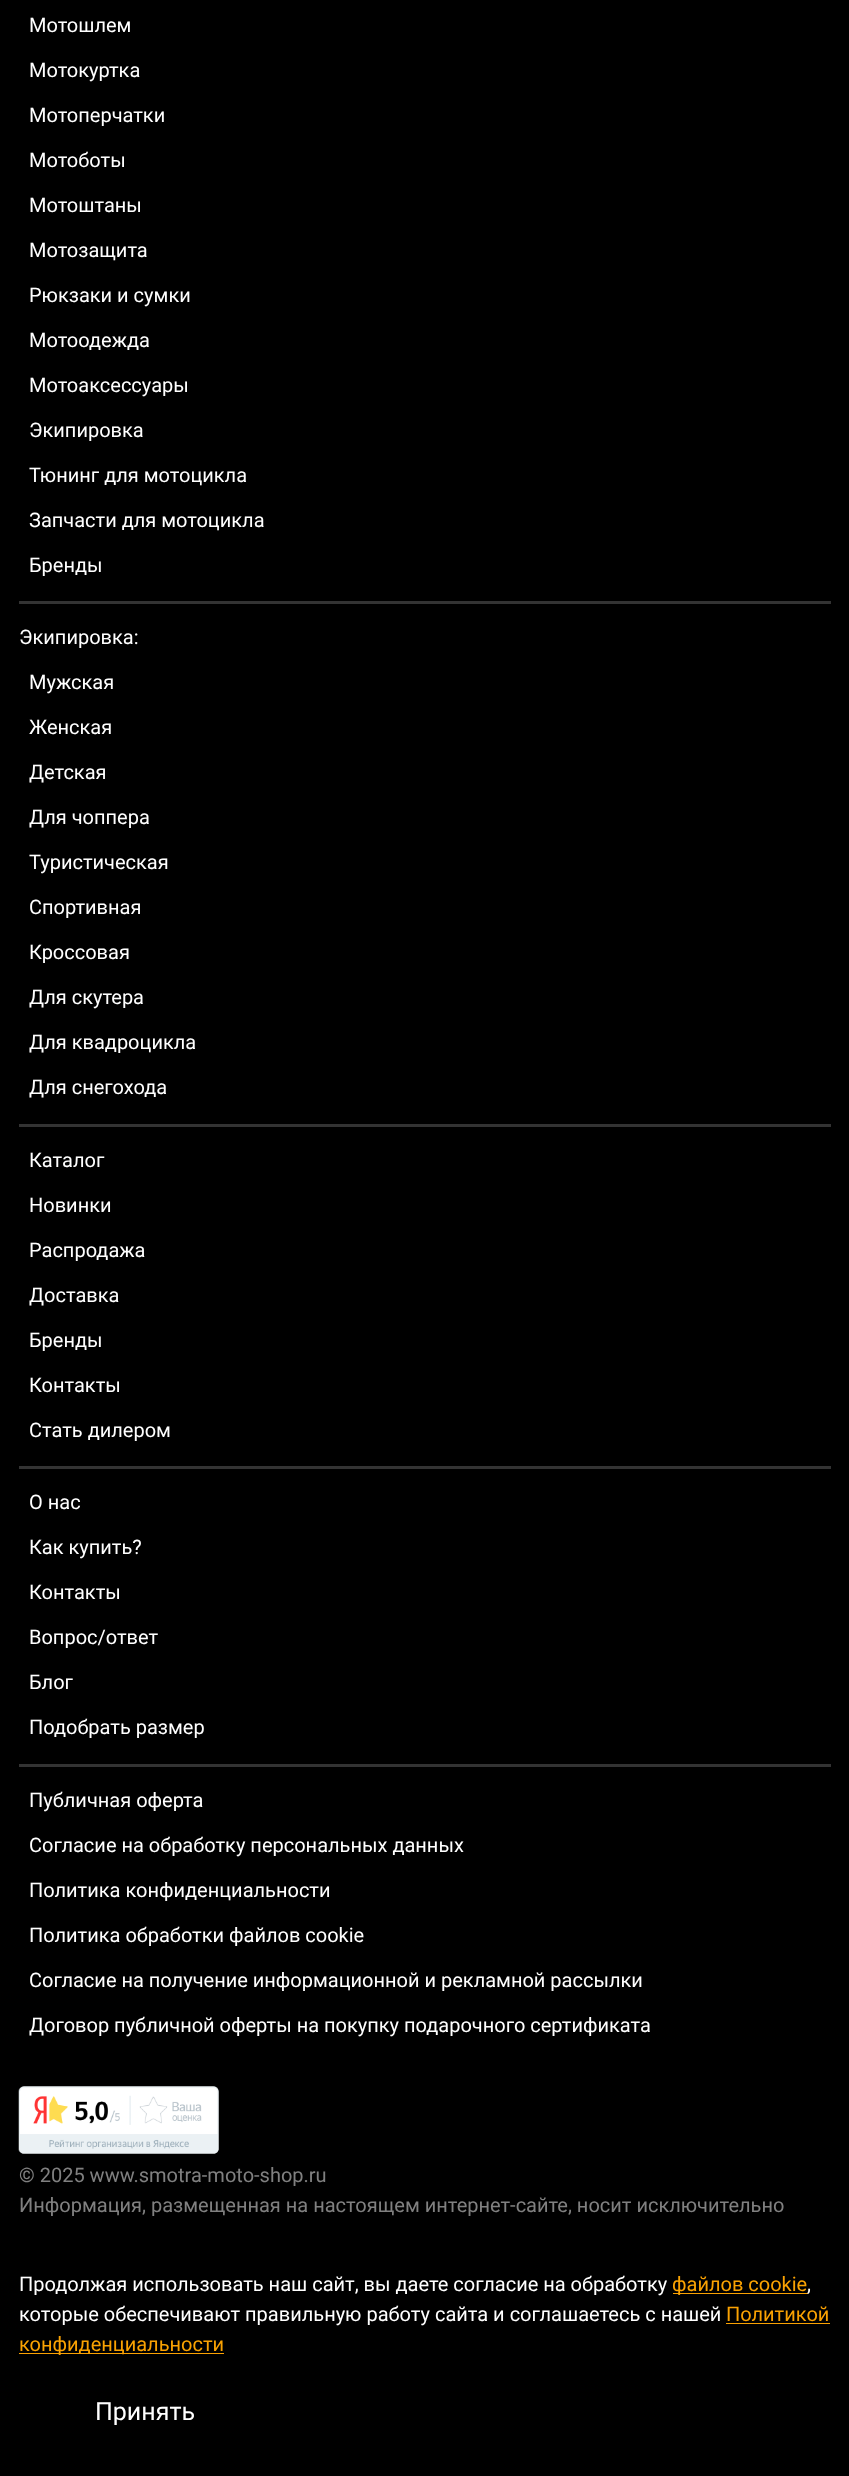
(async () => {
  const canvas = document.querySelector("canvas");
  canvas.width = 849;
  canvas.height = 2476;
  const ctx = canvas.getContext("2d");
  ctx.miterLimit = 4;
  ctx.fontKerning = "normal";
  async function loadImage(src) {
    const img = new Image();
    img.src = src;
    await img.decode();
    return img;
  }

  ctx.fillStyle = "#000000";
  ctx.fillRect(0, 0, 849, 2476);
  for (const [x, y, w, h, color] of [
    [19, 601, 812, 3, "#333333"],
    [19, 1124, 812, 3, "#333333"],
    [19, 1466, 812, 3, "#333333"],
    [19, 1764, 812, 3, "#333333"],
  ]) {
    ctx.fillStyle = color;
    ctx.fillRect(x, y, w, h);
  }
  ctx.drawImage(await loadImage("img/1.png"), 18, 2086, 201, 68);
  for (const [x, y, w, h, color] of [
    [673, 2293, 135, 1, "#faa202"],
    [726, 2323, 104, 1, "#faa202"],
    [19, 2353, 205, 1, "#faa202"],
  ]) {
    ctx.fillStyle = color;
    ctx.fillRect(x, y, w, h);
  }
  ctx.font = "20px Roboto";
  ctx.fillStyle = "#ffffff";
  for (const [text, x, y] of [
    ["Мотошлем", 29, 32],
    ["Мотокуртка", 29, 77],
    ["Мотоперчатки", 29, 122],
    ["Мотоботы", 29, 167],
    ["Мотоштаны", 29, 212],
    ["Мотозащита", 29, 257],
    ["Рюкзаки и сумки", 29, 302],
    ["Мотоодежда", 29, 347],
    ["Мотоаксессуары", 29, 392],
    ["Экипировка", 29, 437],
    ["Тюнинг для мотоцикла", 29, 482],
    ["Запчасти для мотоцикла", 29, 527],
    ["Бренды", 29, 572],
    ["Экипировка:", 19, 644],
    ["Мужская", 29, 689],
    ["Женская", 29, 734],
    ["Детская", 29, 779],
    ["Для чоппера", 29, 824],
    ["Туристическая", 29, 869],
    ["Спортивная", 29, 914],
    ["Кроссовая", 29, 959],
    ["Для скутера", 29, 1004],
    ["Для квадроцикла", 29, 1049],
    ["Для снегохода", 29, 1094],
    ["Каталог", 29, 1167],
    ["Новинки", 29, 1212],
    ["Распродажа", 29, 1257],
    ["Доставка", 29, 1302],
    ["Бренды", 29, 1347],
    ["Контакты", 29, 1392],
    ["Стать дилером", 29, 1437],
    ["О нас", 29, 1509],
    ["Как купить?", 29, 1554],
    ["Контакты", 29, 1599],
    ["Вопрос/ответ", 29, 1644],
    ["Блог", 29, 1689],
    ["Подобрать размер", 29, 1734],
    ["Публичная оферта", 29, 1807],
    ["Согласие на обработку персональных данных", 29, 1852],
    ["Политика конфиденциальности", 29, 1897],
    ["Политика обработки файлов cookie", 29, 1942],
    ["Согласие на получение информационной и рекламной рассылки", 29, 1987],
    ["Договор публичной оферты на покупку подарочного сертификата", 29, 2032],
  ]) {
    ctx.fillText(text, x, y);
  }
  ctx.fillStyle = "#808080";
  ctx.fillText("© 2025 www.smotra-moto-shop.ru", 19, 2182);
  ctx.fillText("Информация, размещенная на настоящем интернет-сайте, носит исключительно", 19, 2212);
  ctx.fillStyle = "#ffffff";
  ctx.fillText("Продолжая использовать наш сайт, вы даете согласие на обработку", 19, 2291);
  ctx.fillStyle = "#faa202";
  ctx.fillText("файлов cookie", 672, 2291);
  ctx.fillStyle = "#ffffff";
  ctx.fillText(",", 807, 2291);
  ctx.fillText("которые обеспечивают правильную работу сайта и соглашаетесь с нашей", 19, 2321);
  ctx.fillStyle = "#faa202";
  ctx.fillText("Политикой", 726, 2321);
  ctx.fillText("конфиденциальности", 19, 2351);
  ctx.font = "25px Roboto";
  ctx.fillStyle = "#ffffff";
  ctx.fillText("Принять", 95, 2420);
})();
